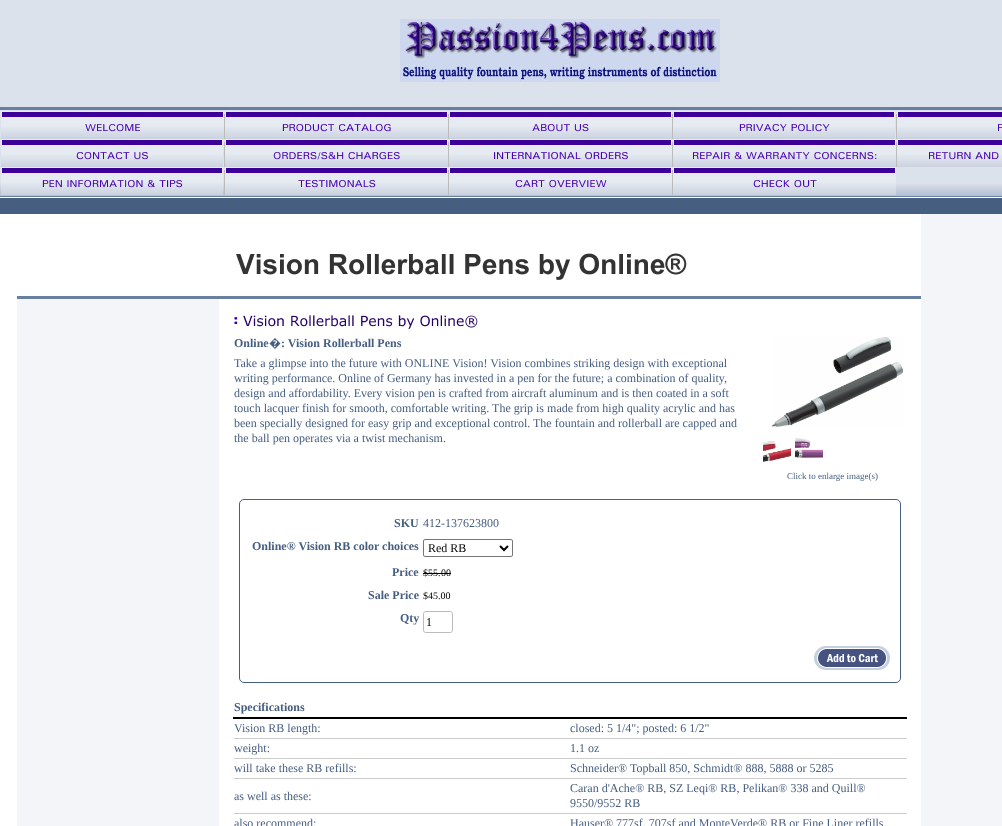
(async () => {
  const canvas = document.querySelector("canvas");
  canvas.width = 1002;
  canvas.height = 826;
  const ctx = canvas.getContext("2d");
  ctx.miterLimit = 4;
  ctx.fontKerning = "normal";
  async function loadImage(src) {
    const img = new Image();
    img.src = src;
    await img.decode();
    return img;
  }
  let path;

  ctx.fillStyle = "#dbe2eb";
  ctx.fillRect(0, 0, 1002, 826);
  ctx.fillStyle = "#697f9f";
  ctx.fillRect(0, 107, 1002, 3);
  ctx.drawImage(await loadImage("img/1.png"), 400, 19, 320, 63);
  ctx.drawImage(await loadImage("img/2.png"), 0, 184, 1002, 12);
  ctx.fillRect(0, 196, 1002, 1);
  ctx.drawImage(await loadImage("img/3.png"), 1, 111, 223, 28);
  ctx.drawImage(await loadImage("img/4.png"), 224, 111, 224, 28);
  ctx.drawImage(await loadImage("img/5.png"), 448, 111, 224, 28);
  ctx.drawImage(await loadImage("img/6.png"), 672, 111, 223, 28);
  ctx.drawImage(await loadImage("img/7.png"), 896, 111, 106, 28);
  ctx.drawImage(await loadImage("img/8.png"), 1, 139, 222, 28);
  ctx.drawImage(await loadImage("img/9.png"), 224, 139, 224, 28);
  ctx.drawImage(await loadImage("img/10.png"), 448, 139, 224, 28);
  ctx.drawImage(await loadImage("img/11.png"), 672, 139, 224, 28);
  ctx.drawImage(await loadImage("img/12.png"), 896, 139, 106, 28);
  ctx.drawImage(await loadImage("img/13.png"), 1, 167, 222, 28);
  ctx.drawImage(await loadImage("img/14.png"), 224, 167, 224, 28);
  ctx.drawImage(await loadImage("img/15.png"), 448, 167, 224, 28);
  ctx.drawImage(await loadImage("img/16.png"), 672, 167, 224, 28);
  for (const [x, y, w, h, color] of [
    [0, 198, 1002, 16, "#465e80"],
    [0, 197, 1002, 1, "#ffffff"],
    [0, 214, 921, 85, "#ffffff"],
  ]) {
    ctx.fillStyle = color;
    ctx.fillRect(x, y, w, h);
  }
  ctx.drawImage(await loadImage("img/17.png"), 236, 253, 451, 27);
  for (const [x, y, w, h, color] of [
    [921, 214, 81, 612, "#f3f5f8"],
    [17, 296, 904, 3, "#697f9f"],
    [0, 299, 17, 527, "#ffffff"],
    [17, 299, 202, 527, "#f3f5f8"],
    [219, 299, 702, 527, "#ffffff"],
  ]) {
    ctx.fillStyle = color;
    ctx.fillRect(x, y, w, h);
  }
  ctx.drawImage(await loadImage("img/18.png"), 234, 315, 244, 14);
  ctx.drawImage(await loadImage("img/19.png"), 771, 337, 133, 90);
  ctx.drawImage(await loadImage("img/20.png"), 763, 441, 28, 21);
  ctx.drawImage(await loadImage("img/21.png"), 795, 438, 28, 20);
  ctx.beginPath();
  ctx.roundRect(239.5, 499.5, 661, 183, 4.5);
  ctx.strokeStyle = "#465e80";
  ctx.stroke();
  ctx.beginPath();
  ctx.roundRect(423.5, 539.5, 89, 17, 1.5);
  ctx.strokeStyle = "#767676";
  ctx.stroke();
  path = new Path2D("M500 546L504 550L508 546");
  ctx.strokeStyle = "#000000";
  ctx.lineWidth = 2;
  ctx.stroke(path);
  ctx.fillStyle = "#000000";
  ctx.fillRect(423, 573, 18, 1);
  ctx.fillRect(441, 573, 10, 1);
  ctx.beginPath();
  ctx.roundRect(423.5, 611.5, 29, 21, 2.5);
  ctx.strokeStyle = "#bbbbbb";
  ctx.lineWidth = 1;
  ctx.stroke();
  ctx.fillStyle = "#ffffff";
  ctx.beginPath();
  ctx.roundRect(424, 612, 28, 20, 3);
  ctx.fill();
  ctx.drawImage(await loadImage("img/22.png"), 814, 646, 76, 24);
  for (const [x, y, w, h, color] of [
    [233, 717, 674, 2, "#000000"],
    [234, 738, 673, 1, "#cccccc"],
    [234, 758, 673, 1, "#cccccc"],
    [234, 778, 673, 1, "#cccccc"],
    [234, 813, 673, 1, "#cccccc"],
  ]) {
    ctx.fillStyle = color;
    ctx.fillRect(x, y, w, h);
  }
  ctx.font = "bold 12px Liberation Serif";
  ctx.fillStyle = "#465e80";
  ctx.fillText("Online", 234, 347);
  ctx.font = "bold 12px Noto Sans";
  ctx.fillText("�", 269, 347);
  ctx.font = "bold 12px Liberation Serif";
  ctx.fillText(": Vision Rollerball Pens", 281, 347);
  ctx.font = "12px Liberation Serif";
  for (const [text, x, y] of [
    ["Take a glimpse into the future with ONLINE Vision! Vision combines striking design with exceptional", 234, 367],
    ["writing performance. Online of Germany has invested in a pen for the future; a combination of quality,", 234, 382],
    ["design and affordability. Every vision pen is crafted from aircraft aluminum and is then coated in a soft", 234, 397],
    ["touch lacquer finish for smooth, comfortable writing. The grip is made from high quality acrylic and has", 234, 412],
    ["been specially designed for easy grip and exceptional control. The fountain and rollerball are capped and", 234, 427],
    ["the ball pen operates via a twist mechanism.", 234, 442],
  ]) {
    ctx.fillText(text, x, y);
  }
  ctx.font = "9px Liberation Serif";
  ctx.fillText("Click to enlarge image(s)", 787, 479);
  ctx.font = "bold 12px Liberation Serif";
  ctx.fillText("SKU", 394, 527);
  ctx.font = "12px Liberation Serif";
  ctx.fillText("412-137623800", 423, 527);
  ctx.font = "bold 12px Liberation Serif";
  ctx.fillText("Online® Vision RB color choices", 252, 550);
  ctx.font = "12px Liberation Serif";
  ctx.fillStyle = "#000000";
  ctx.fillText("Red RB", 428, 552);
  ctx.font = "bold 12px Liberation Serif";
  ctx.fillStyle = "#465e80";
  ctx.fillText("Price", 392, 576);
  ctx.font = "10px Liberation Serif";
  ctx.fillStyle = "#000000";
  ctx.fillText("$55.", 423, 576);
  ctx.fillText("00", 441, 576);
  ctx.font = "bold 12px Liberation Serif";
  ctx.fillStyle = "#465e80";
  ctx.fillText("Sale Price", 368, 599);
  ctx.font = "10px Liberation Serif";
  ctx.fillStyle = "#000000";
  ctx.fillText("$45.00", 423, 599);
  ctx.font = "bold 12px Liberation Serif";
  ctx.fillStyle = "#465e80";
  ctx.fillText("Qty", 400, 622);
  ctx.font = "12px Liberation Serif";
  ctx.fillStyle = "#000000";
  ctx.fillText("1", 426, 626);
  ctx.font = "bold 12px Liberation Serif";
  ctx.fillStyle = "#465e80";
  ctx.fillText("Specifications", 234, 711);
  ctx.font = "12px Liberation Serif";
  for (const [text, x, y] of [
    ["Vision RB length:", 234, 732],
    ["closed: 5 1/4\"; posted: 6 1/2\"", 570, 732],
    ["weight:", 234, 752],
    ["1.1 oz", 570, 752],
    ["will take these RB refills:", 234, 772],
    ["Schneider® Topball 850, Schmidt® 888, 5888 or 5285", 570, 772],
    ["as well as these:", 234, 800],
    ["Caran d'Ache® RB, SZ Leqi® RB, Pelikan® 338 and Quill®", 570, 792],
    ["9550/9552 RB", 570, 807],
    ["also recommend:", 234, 827],
    ["Hauser® 777sf, 707sf and MonteVerde® RB or Fine Liner refills", 570, 827],
  ]) {
    ctx.fillText(text, x, y);
  }
})();
